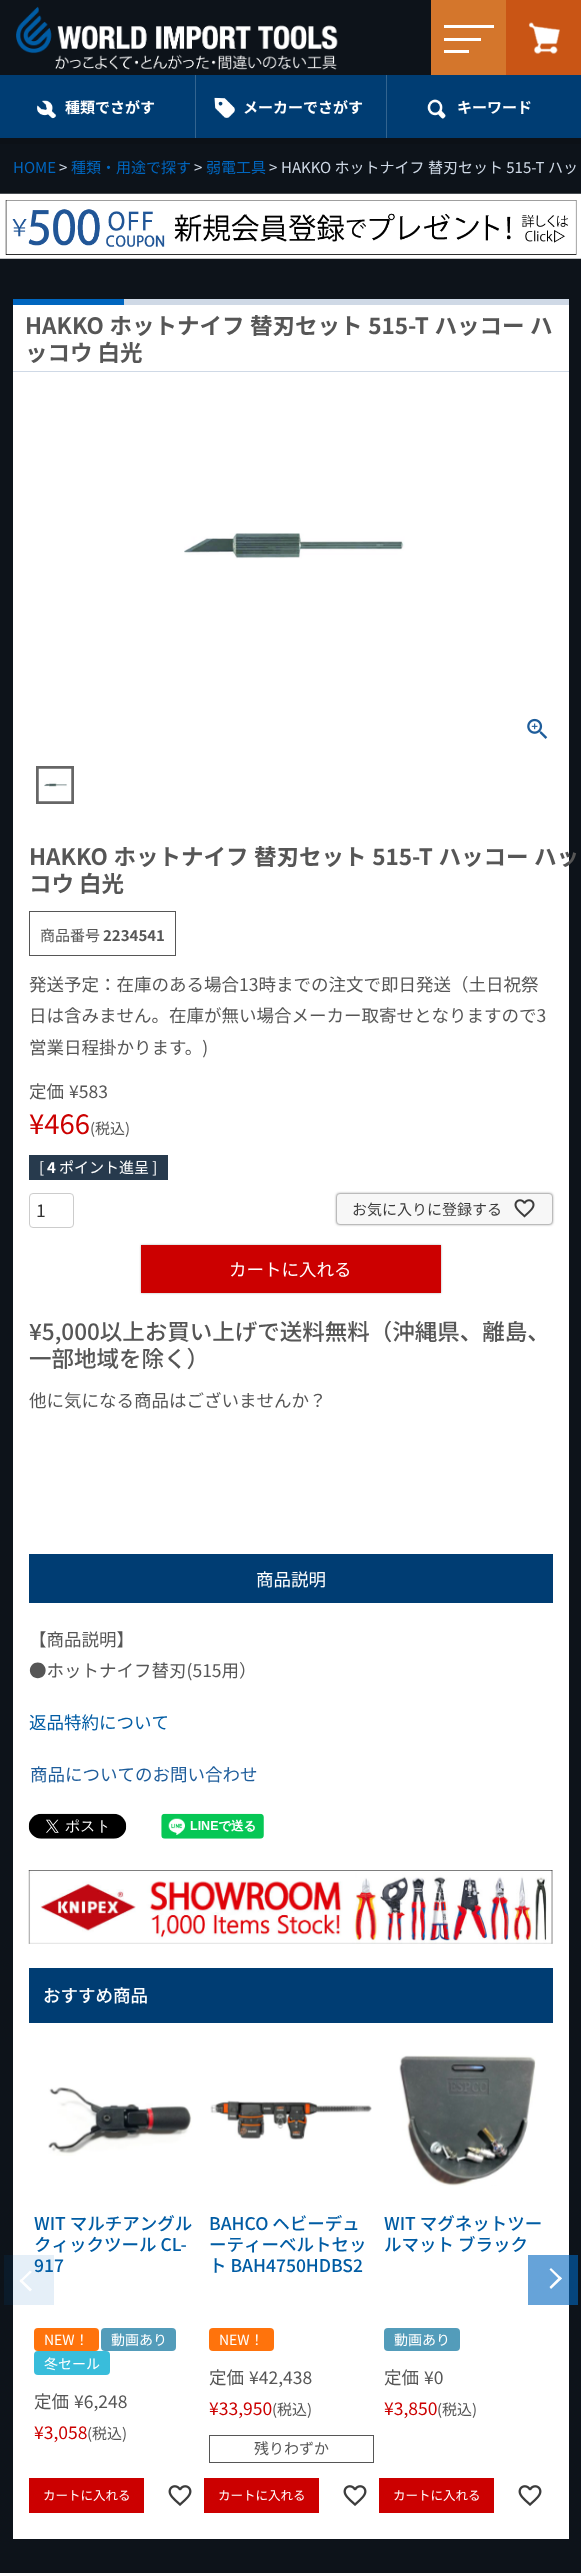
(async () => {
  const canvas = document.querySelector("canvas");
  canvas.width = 581;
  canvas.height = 2573;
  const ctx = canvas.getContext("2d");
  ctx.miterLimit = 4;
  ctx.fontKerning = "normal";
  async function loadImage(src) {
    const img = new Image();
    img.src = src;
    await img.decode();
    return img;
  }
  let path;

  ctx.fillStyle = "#0d131a";
  ctx.fillRect(0, 0, 581, 2573);
  ctx.fillStyle = "#05457d";
  ctx.fillRect(569, 2255, 9, 50);
  ctx.fillStyle = "#0c1117";
  ctx.fillRect(0, 138, 581, 6);
  ctx.drawImage(await loadImage("img/1.png"), 16, 6, 322, 64);
  for (const [x, y, w, h, color] of [
    [431, 0, 75, 75, "#d4762c"],
    [444, 38, 37, 3, "#ffffff"],
    [444, 50, 25, 3, "#ffffff"],
    [444, 25, 50, 3, "#ffffff"],
    [506, 0, 75, 75, "#c95515"],
  ]) {
    ctx.fillStyle = color;
    ctx.fillRect(x, y, w, h);
  }
  ctx.drawImage(await loadImage("img/2.png"), 528, 22, 32, 32);
  ctx.fillStyle = "#003d73";
  ctx.fillRect(0, 75, 581, 63);
  ctx.drawImage(await loadImage("img/3.png"), 37, 100, 20, 19);
  ctx.fillStyle = "#33648f";
  ctx.fillRect(195, 75, 1, 63);
  ctx.drawImage(await loadImage("img/4.png"), 214, 97, 21, 21);
  ctx.fillRect(386, 75, 1, 63);
  ctx.drawImage(await loadImage("img/5.png"), 427, 99, 19, 20);
  ctx.drawImage(await loadImage("img/6.png"), 0, 193, 581, 66);
  for (const [x, y, w, h, color] of [
    [13, 305, 556, 2234, "#ffffff"],
    [528, 2255, 41, 50, "#66a3d9"],
    [124, 299, 445, 6, "#cfd9e6"],
    [13, 371, 556, 1, "#cfd9e6"],
    [13, 299, 111, 6, "#0066bf"],
  ]) {
    ctx.fillStyle = color;
    ctx.fillRect(x, y, w, h);
  }
  ctx.drawImage(await loadImage("img/7.png"), 184, 533, 221, 26);
  ctx.drawImage(await loadImage("img/8.png"), 527, 718, 21, 21);
  ctx.strokeStyle = "#666666";
  ctx.lineWidth = 3;
  ctx.strokeRect(37.5, 767.5, 35, 35);
  ctx.drawImage(await loadImage("img/9.png"), 38, 768, 34, 34);
  ctx.strokeStyle = "#565656";
  ctx.lineWidth = 1;
  ctx.strokeRect(29.5, 911.5, 146, 44);
  ctx.fillStyle = "#273a4d";
  ctx.fillRect(29, 1155, 139, 25);
  ctx.beginPath();
  ctx.roundRect(29.5, 1193.5, 44, 34, 3.5);
  ctx.strokeStyle = "#cccccc";
  ctx.stroke();
  ctx.fillStyle = "#b2b2b2";
  ctx.filter = "blur(1px)";
  ctx.beginPath();
  ctx.roundRect(336, 1193, 217, 32, 4);
  ctx.fill();
  ctx.filter = "none";
  ctx.fillStyle = "#f7f7f7";
  ctx.beginPath();
  ctx.roundRect(336.5, 1193.5, 216, 31, 3.5);
  ctx.fill();
  ctx.strokeStyle = "#bbbbbb";
  ctx.stroke();
  ctx.drawImage(await loadImage("img/10.png"), 514, 1199, 21, 19);
  ctx.fillStyle = "#b2b2b2";
  ctx.filter = "blur(1px)";
  ctx.beginPath();
  ctx.rect(141, 1245, 300, 48);
  ctx.fill();
  ctx.filter = "none";
  ctx.fillStyle = "#cc0000";
  ctx.fillRect(141, 1245, 300, 48);
  ctx.fillStyle = "#003d73";
  ctx.fillRect(29, 1554, 524, 49);
  ctx.drawImage(await loadImage("img/11.png"), 28, 1813, 99, 26);
  ctx.drawImage(await loadImage("img/12.png"), 161, 1813, 103, 26);
  ctx.drawImage(await loadImage("img/13.png"), 28, 1870, 525, 74);
  ctx.fillRect(29, 1968, 524, 55);
  ctx.fillStyle = "rgba(0, 102, 191, 0.1)";
  ctx.fillRect(4, 2255, 50, 50);
  ctx.fillStyle = "#ffffff";
  path = new Path2D("M30 2291.5L19.5 2281L21 2279L32 2289.5Z");
  ctx.fill(path);
  path = new Path2D("M21 2282.5L19.5 2281L30 2270.5L32 2272Z");
  ctx.fill(path);
  ctx.drawImage(await loadImage("img/14.png"), 48, 2087, 144, 69);
  ctx.fillStyle = "#ff730c";
  ctx.beginPath();
  ctx.roundRect(34, 2328, 65, 23, 4);
  ctx.fill();
  ctx.fillStyle = "#539cba";
  ctx.beginPath();
  ctx.roundRect(101, 2328, 75, 23, 4);
  ctx.fill();
  ctx.fillStyle = "#39bddb";
  ctx.beginPath();
  ctx.roundRect(34, 2351, 76, 24, 4);
  ctx.fill();
  ctx.fillStyle = "#cc0000";
  ctx.fillRect(29, 2478, 115, 35);
  ctx.drawImage(await loadImage("img/15.png"), 168, 2485, 24, 21);
  ctx.drawImage(await loadImage("img/16.png"), 210, 2100, 162, 40);
  ctx.fillStyle = "#ff730c";
  ctx.beginPath();
  ctx.roundRect(209, 2328, 65, 23, 4);
  ctx.fill();
  ctx.strokeStyle = "#565656";
  ctx.strokeRect(209.5, 2435.5, 164, 27);
  ctx.fillStyle = "#cc0000";
  ctx.fillRect(204, 2478, 115, 35);
  ctx.drawImage(await loadImage("img/15.png"), 343, 2485, 24, 21);
  ctx.drawImage(await loadImage("img/17.png"), 399, 2055, 137, 131);
  ctx.fillStyle = "#539cba";
  ctx.beginPath();
  ctx.roundRect(384, 2328, 76, 23, 4);
  ctx.fill();
  ctx.fillStyle = "#cc0000";
  ctx.fillRect(379, 2478, 115, 35);
  ctx.drawImage(await loadImage("img/15.png"), 518, 2485, 24, 21);
  ctx.fillStyle = "#ffffff";
  path = new Path2D("M551 2268L562 2278.5L560 2280L549.5 2269.5Z");
  ctx.fill(path);
  path = new Path2D("M560 2276.5L562 2278.5L551 2289L549.5 2287Z");
  ctx.fill(path);
  ctx.font = "bold 15px Noto Sans JP";
  for (const [text, x, y] of [
    ["種類でさがす", 65, 113],
    ["メーカーでさがす", 243, 113],
    ["キーワード", 457, 113],
  ]) {
    ctx.fillText(text, x, y);
  }
  ctx.font = "15px Noto Sans JP";
  ctx.fillStyle = "#0066bf";
  ctx.fillText("HOME", 13, 173);
  ctx.fillStyle = "#cfd9e6";
  ctx.fillText(">", 59, 173);
  ctx.fillStyle = "#0066bf";
  ctx.fillText("種類・用途で探す", 71, 173);
  ctx.fillStyle = "#cfd9e6";
  ctx.fillText(">", 194, 173);
  ctx.fillStyle = "#0066bf";
  ctx.fillText("弱電工具", 206, 173);
  ctx.fillStyle = "#cfd9e6";
  ctx.fillText(">", 269, 173);
  ctx.fillText("HAKKO ホットナイフ 替刃セット 515-T ハッ", 281, 173);
  ctx.wordSpacing = "0.5px";
  ctx.font = "bold 22.5px Noto Sans JP";
  ctx.fillStyle = "#565656";
  ctx.fillText("HAKKO ホットナイフ 替刃セット 515-T ハッコー ハ", 25, 334);
  ctx.wordSpacing = "0px";
  ctx.fillText("ッコウ 白光", 25, 361);
  ctx.wordSpacing = "0.5px";
  ctx.font = "bold 22.5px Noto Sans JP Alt";
  ctx.fillText("HAKKO ホットナイフ 替刃セット 515-T ハッコー ハッ", 29, 865);
  ctx.wordSpacing = "0px";
  ctx.font = "bold 22.5px Noto Sans JP";
  ctx.fillText("コウ 白光", 29, 892);
  ctx.font = "15px Noto Sans JP";
  ctx.fillText("商品番号", 40, 941);
  ctx.font = "bold 15px Noto Sans JP";
  ctx.fillText("2234541", 103, 941);
  ctx.font = "17.5px Noto Sans JP";
  for (const [text, x, y] of [
    ["発送予定：在庫のある場合13時までの注文で即日発送（土日祝祭", 29, 991],
    ["日は含みません。在庫が無い場合メーカー取寄せとなりますので3", 29, 1022],
    ["営業日程掛かります。)", 29, 1054],
    ["定価", 29, 1098],
    ["¥583", 69, 1098],
  ]) {
    ctx.fillText(text, x, y);
  }
  ctx.font = "27.5px Noto Sans JP";
  ctx.fillStyle = "#cc0000";
  ctx.fillText("¥466", 29, 1134);
  ctx.font = "15px Noto Sans JP";
  ctx.fillStyle = "#565656";
  ctx.fillText("(税込)", 90, 1134);
  ctx.fillStyle = "#ffffff";
  ctx.fillText("[", 39, 1173);
  ctx.font = "bold 15px Noto Sans JP";
  ctx.fillText("4", 47, 1173);
  ctx.font = "15px Noto Sans JP";
  ctx.fillText("ポイント進呈 ]", 59, 1173);
  ctx.font = "17.5px Noto Sans JP";
  ctx.fillStyle = "#333333";
  ctx.fillText("1", 36, 1217);
  ctx.font = "15px Noto Sans JP";
  ctx.fillStyle = "#3c3c3c";
  ctx.fillText("お気に入りに登録する", 352, 1215);
  ctx.font = "17.5px Noto Sans JP";
  ctx.fillStyle = "#ffffff";
  ctx.fillText("カートに入れる", 229, 1276);
  ctx.font = "500 22.5px Noto Sans JP";
  ctx.fillStyle = "#565656";
  ctx.fillText("¥5,000以上お買い上げで送料無料（沖縄県、離島、", 29, 1340);
  ctx.fillText("一部地域を除く）", 29, 1367);
  ctx.font = "17.5px Noto Sans JP";
  ctx.fillText("他に気になる商品はございませんか？", 29, 1407);
  ctx.fillStyle = "#ffffff";
  ctx.fillText("商品説明", 256, 1586);
  ctx.fillStyle = "#565656";
  ctx.fillText("【商品説明】", 29, 1646);
  ctx.fillText("●ホットナイフ替刃(515用）", 29, 1677);
  ctx.fillStyle = "#005ca4";
  ctx.fillText("返品特約について", 29, 1729);
  ctx.fillStyle = "#1e5d9b";
  ctx.fillText("商品についてのお問い合わせ", 30, 1781);
  ctx.font = "500 17.5px Noto Sans JP";
  ctx.fillStyle = "#ffffff";
  ctx.fillText("おすすめ商品", 43, 2002);
  ctx.fillStyle = "#005ca4";
  for (const [text, x, y] of [
    ["WIT マルチアングル", 34, 2230],
    ["クィックツール CL-", 34, 2251],
    ["917", 34, 2272],
  ]) {
    ctx.fillText(text, x, y);
  }
  ctx.font = "14px Noto Sans JP";
  ctx.fillStyle = "#ffffff";
  for (const [text, x, y] of [
    ["NEW！", 44, 2345],
    ["動画あり", 111, 2345],
    ["冬セール", 44, 2369],
  ]) {
    ctx.fillText(text, x, y);
  }
  ctx.font = "17.5px Noto Sans JP";
  ctx.fillStyle = "#565656";
  ctx.fillText("定価", 34, 2408);
  ctx.fillText("¥6,248", 74, 2408);
  ctx.fillStyle = "#cc0000";
  ctx.fillText("¥3,058", 34, 2439);
  ctx.font = "15px Noto Sans JP";
  ctx.fillStyle = "#565656";
  ctx.fillText("(税込)", 87, 2439);
  ctx.font = "12.5px Noto Sans JP";
  ctx.fillStyle = "#ffffff";
  ctx.fillText("カートに入れる", 43, 2500);
  ctx.font = "500 17.5px Noto Sans JP";
  ctx.fillStyle = "#005ca4";
  for (const [text, x, y] of [
    ["BAHCO ヘビーデュ", 209, 2230],
    ["ーティーベルトセッ", 209, 2251],
    ["ト BAH4750HDBS2", 209, 2272],
  ]) {
    ctx.fillText(text, x, y);
  }
  ctx.font = "14px Noto Sans JP";
  ctx.fillStyle = "#ffffff";
  ctx.fillText("NEW！", 219, 2345);
  ctx.font = "17.5px Noto Sans JP";
  ctx.fillStyle = "#565656";
  ctx.fillText("定価", 209, 2384);
  ctx.fillText("¥42,438", 249, 2384);
  ctx.fillStyle = "#cc0000";
  ctx.fillText("¥33,950", 209, 2415);
  ctx.font = "15px Noto Sans JP";
  ctx.fillStyle = "#565656";
  ctx.fillText("(税込)", 272, 2415);
  ctx.fillText("残りわずか", 254, 2454);
  ctx.font = "12.5px Noto Sans JP";
  ctx.fillStyle = "#ffffff";
  ctx.fillText("カートに入れる", 218, 2500);
  ctx.font = "500 17.5px Noto Sans JP";
  ctx.fillStyle = "#005ca4";
  ctx.fillText("WIT マグネットツー", 384, 2230);
  ctx.fillText("ルマット ブラック", 384, 2251);
  ctx.font = "14px Noto Sans JP";
  ctx.fillStyle = "#ffffff";
  ctx.fillText("動画あり", 394, 2345);
  ctx.font = "17.5px Noto Sans JP";
  ctx.fillStyle = "#565656";
  ctx.fillText("定価", 384, 2384);
  ctx.fillText("¥0", 424, 2384);
  ctx.fillStyle = "#cc0000";
  ctx.fillText("¥3,850", 384, 2415);
  ctx.font = "15px Noto Sans JP";
  ctx.fillStyle = "#565656";
  ctx.fillText("(税込)", 437, 2415);
  ctx.font = "12.5px Noto Sans JP";
  ctx.fillStyle = "#ffffff";
  ctx.fillText("カートに入れる", 393, 2500);
})();
